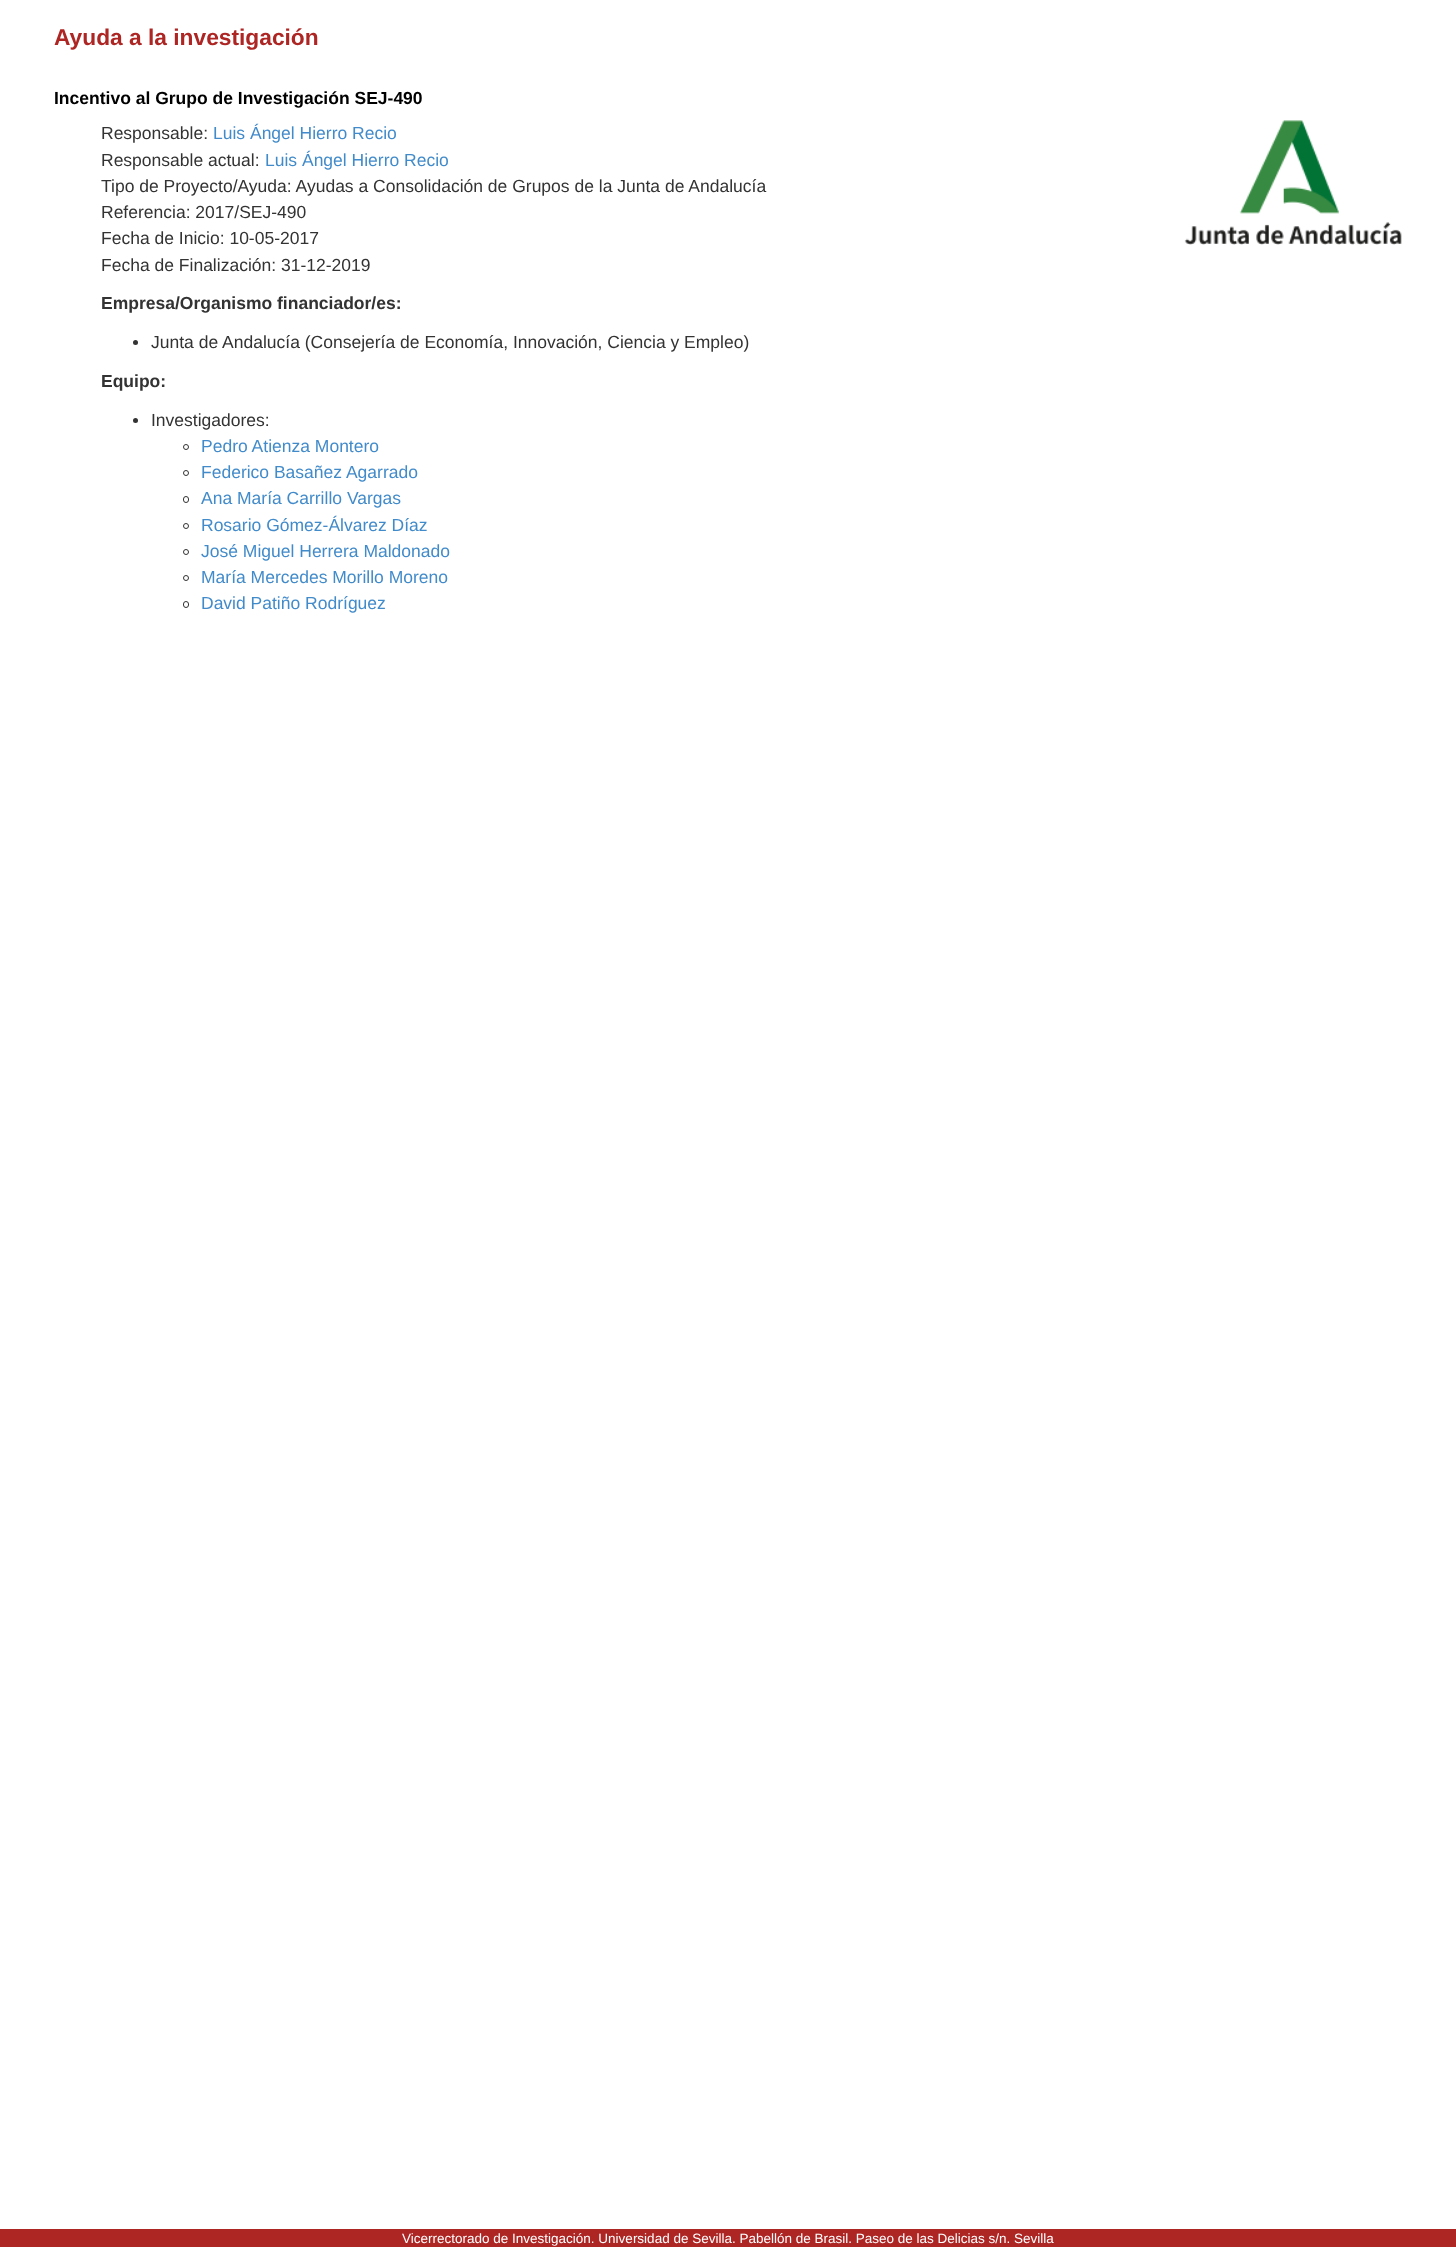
(async () => {
  const canvas = document.querySelector("canvas");
  canvas.width = 1456;
  canvas.height = 2247;
  const ctx = canvas.getContext("2d");
  ctx.miterLimit = 4;
  ctx.fontKerning = "normal";
  async function loadImage(src) {
    const img = new Image();
    img.src = src;
    await img.decode();
    return img;
  }

  ctx.fillStyle = "#ffffff";
  ctx.fillRect(0, 0, 1456, 2247);
  ctx.drawImage(await loadImage("img/1.png"), 1184, 120, 218, 125);
  ctx.fillStyle = "#333333";
  ctx.beginPath();
  ctx.arc(135.5, 342.5, 2.5, 0, Math.PI * 2);
  ctx.fill();
  ctx.beginPath();
  ctx.arc(135.5, 420.5, 2.5, 0, Math.PI * 2);
  ctx.fill();
  ctx.beginPath();
  ctx.arc(186, 447, 2.5, 0, Math.PI * 2);
  ctx.strokeStyle = "#333333";
  ctx.stroke();
  ctx.beginPath();
  ctx.arc(186, 473, 2.5, 0, Math.PI * 2);
  ctx.stroke();
  ctx.beginPath();
  ctx.roundRect(183.5, 496.5, 5, 6, 2.5);
  ctx.stroke();
  ctx.beginPath();
  ctx.arc(186, 526, 2.5, 0, Math.PI * 2);
  ctx.stroke();
  ctx.beginPath();
  ctx.arc(186, 552, 2.5, 0, Math.PI * 2);
  ctx.stroke();
  ctx.beginPath();
  ctx.arc(186, 578, 2.5, 0, Math.PI * 2);
  ctx.stroke();
  ctx.beginPath();
  ctx.roundRect(183.5, 601.5, 5, 6, 2.5);
  ctx.stroke();
  ctx.fillStyle = "#ad2624";
  ctx.fillRect(0, 2229, 1456, 18);
  ctx.font = "bold 22.75px Liberation Sans";
  ctx.fillText("Ayuda a la investigación", 54, 45);
  ctx.font = "bold 17.5px Liberation Sans";
  ctx.fillStyle = "#000000";
  ctx.fillText("Incentivo al Grupo de Investigación SEJ-490", 54, 104);
  ctx.font = "17.5px Liberation Sans";
  ctx.fillStyle = "#333333";
  ctx.fillText("Responsable:", 101, 139);
  ctx.fillStyle = "#428bca";
  ctx.fillText("Luis Ángel Hierro Recio", 213, 139);
  ctx.fillStyle = "#333333";
  ctx.fillText("Responsable actual:", 101, 166);
  ctx.fillStyle = "#428bca";
  ctx.fillText("Luis Ángel Hierro Recio", 265, 166);
  ctx.fillStyle = "#333333";
  for (const [text, x, y] of [
    ["Tipo de Proyecto/Ayuda: Ayudas a Consolidación de Grupos de la Junta de Andalucía", 101, 192],
    ["Referencia: 2017/SEJ-490", 101, 218],
    ["Fecha de Inicio: 10-05-2017", 101, 244],
    ["Fecha de Finalización: 31-12-2019", 101, 271],
  ]) {
    ctx.fillText(text, x, y);
  }
  ctx.font = "bold 17.5px Liberation Sans";
  ctx.fillText("Empresa/Organismo financiador/es:", 101, 309);
  ctx.font = "17.5px Liberation Sans";
  ctx.fillText("Junta de Andalucía (Consejería de Economía, Innovación, Ciencia y Empleo)", 151, 348);
  ctx.font = "bold 17.5px Liberation Sans";
  ctx.fillText("Equipo:", 101, 387);
  ctx.font = "17.5px Liberation Sans";
  ctx.fillText("Investigadores:", 151, 426);
  ctx.fillStyle = "#428bca";
  for (const [text, x, y] of [
    ["Pedro Atienza Montero", 201, 452],
    ["Federico Basañez Agarrado", 201, 478],
    ["Ana María Carrillo Vargas", 201, 504],
    ["Rosario Gómez-Álvarez Díaz", 201, 531],
    ["José Miguel Herrera Maldonado", 201, 557],
    ["María Mercedes Morillo Moreno", 201, 583],
    ["David Patiño Rodríguez", 201, 609],
  ]) {
    ctx.fillText(text, x, y);
  }
  ctx.font = "13.5px Liberation Sans";
  ctx.fillStyle = "#ffffff";
  ctx.fillText("Vicerrectorado de Investigación. Universidad de Sevilla. Pabellón de Brasil. Paseo de las Delicias s/n. Sevilla", 402, 2243);
})();
